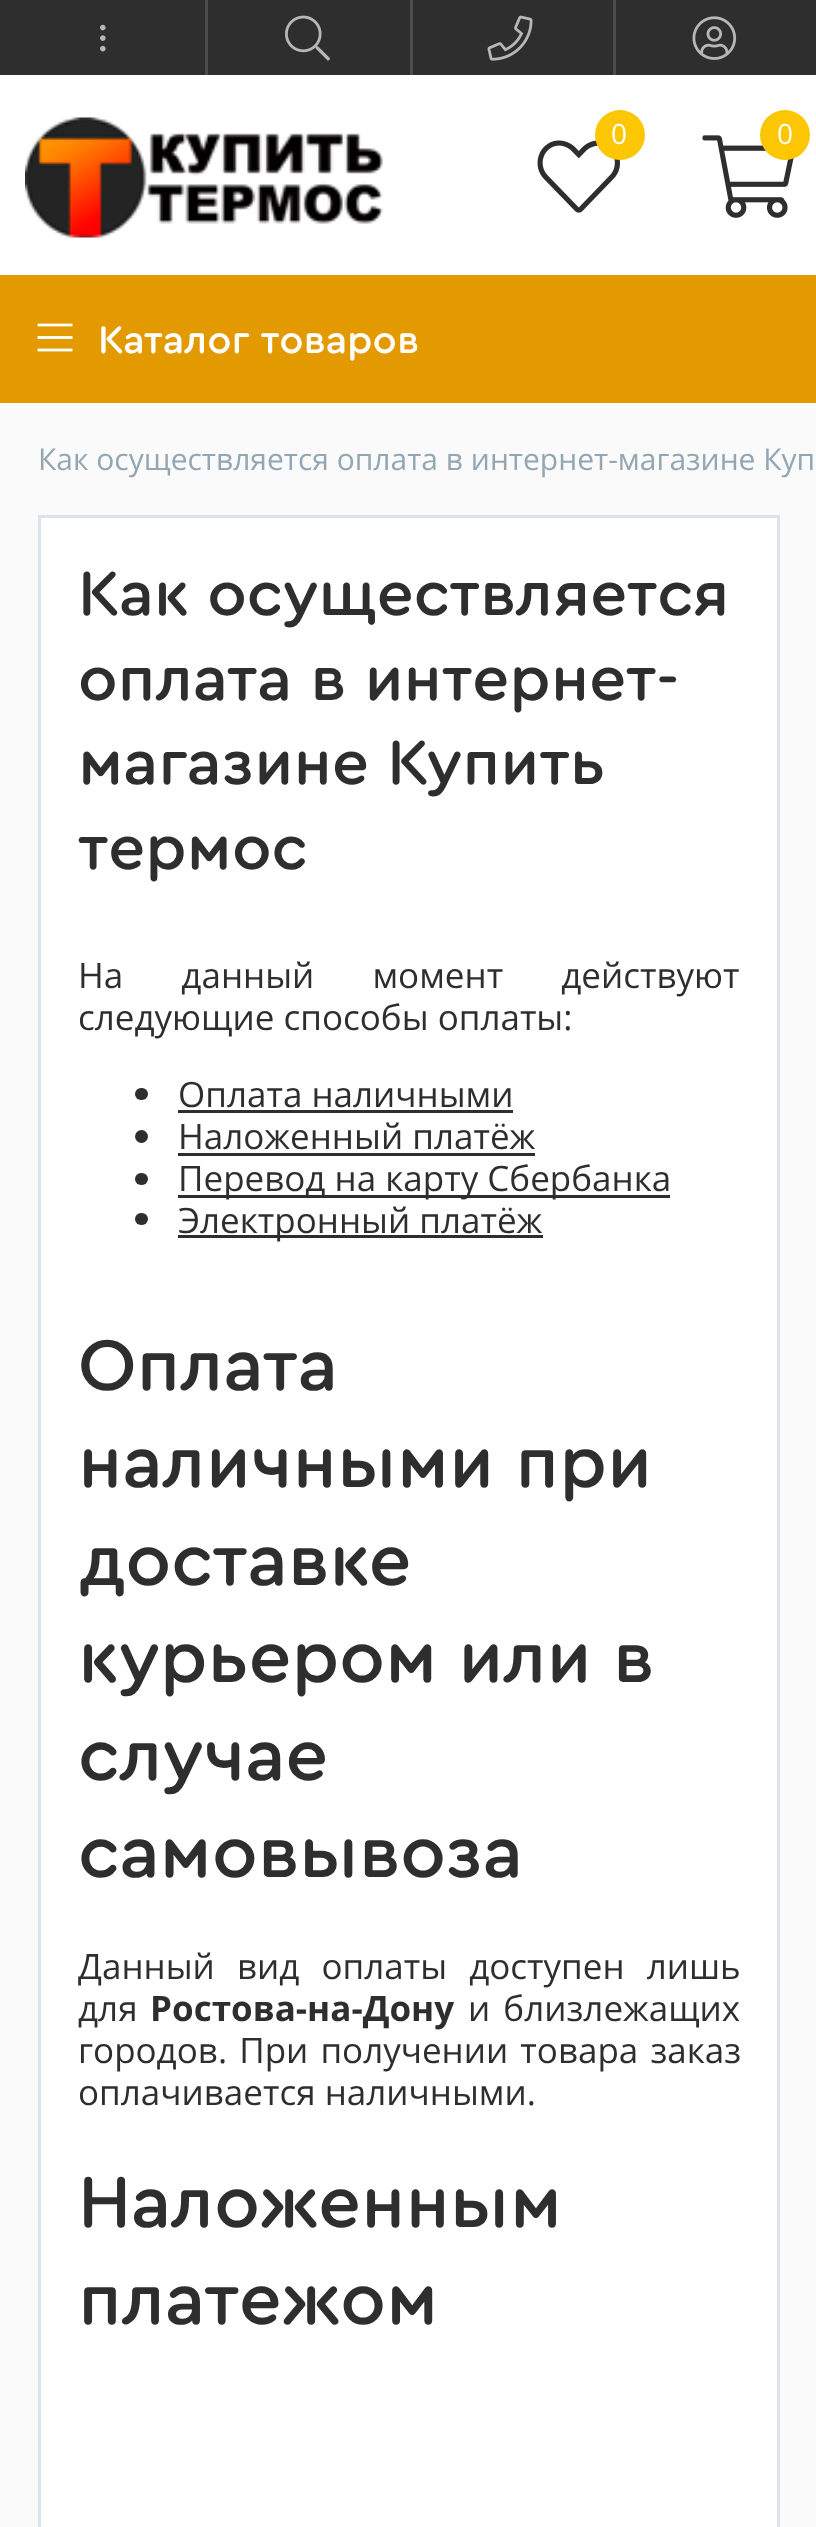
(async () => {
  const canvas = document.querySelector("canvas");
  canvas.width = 816;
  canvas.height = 2527;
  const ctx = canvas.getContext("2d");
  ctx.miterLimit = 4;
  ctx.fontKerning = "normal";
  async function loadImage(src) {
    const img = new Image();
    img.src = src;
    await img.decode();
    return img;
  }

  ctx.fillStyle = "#fafafa";
  ctx.fillRect(0, 0, 816, 2527);
  ctx.fillStyle = "#2e2e2e";
  ctx.fillRect(0, 0, 816, 75);
  ctx.drawImage(await loadImage("img/1.png"), 100, 24, 6, 28);
  ctx.fillStyle = "#4c4c4c";
  ctx.fillRect(205, 0, 3, 75);
  ctx.drawImage(await loadImage("img/2.png"), 285, 15, 45, 46);
  ctx.fillRect(410, 0, 3, 75);
  ctx.drawImage(await loadImage("img/3.png"), 487, 15, 46, 46);
  ctx.fillRect(613, 0, 3, 75);
  ctx.drawImage(await loadImage("img/4.png"), 692, 16, 45, 44);
  ctx.fillStyle = "#ffffff";
  ctx.fillRect(0, 75, 816, 200);
  ctx.drawImage(await loadImage("img/5.png"), 25, 117, 358, 121);
  ctx.drawImage(await loadImage("img/6.png"), 537, 140, 83, 73);
  ctx.fillStyle = "#fcc602";
  ctx.beginPath();
  ctx.arc(620, 135, 25, 0, Math.PI * 2);
  ctx.fill();
  ctx.drawImage(await loadImage("img/7.png"), 702, 135, 92, 83);
  ctx.beginPath();
  ctx.arc(785, 135, 25, 0, Math.PI * 2);
  ctx.fill();
  ctx.fillStyle = "#e39a00";
  ctx.fillRect(0, 275, 816, 128);
  ctx.drawImage(await loadImage("img/8.png"), 37, 323, 36, 29);
  ctx.fillStyle = "#ffffff";
  ctx.beginPath();
  ctx.rect(39.5, 516.5, 739, 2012);
  ctx.fill();
  ctx.strokeStyle = "#dce4e9";
  ctx.lineWidth = 3;
  ctx.stroke();
  ctx.fillStyle = "#2e2e2e";
  ctx.beginPath();
  ctx.roundRect(135, 1088, 13, 12, 6);
  ctx.fill();
  ctx.fillRect(178, 1110, 335, 3);
  ctx.beginPath();
  ctx.arc(141.5, 1136.5, 6.5, 0, Math.PI * 2);
  ctx.fill();
  ctx.fillRect(178, 1153, 357, 3);
  ctx.beginPath();
  ctx.roundRect(135, 1173, 13, 12, 6);
  ctx.fill();
  ctx.fillRect(178, 1195, 492, 3);
  ctx.beginPath();
  ctx.roundRect(135, 1213, 13, 12, 6);
  ctx.fill();
  ctx.fillRect(178, 1235, 365, 3);
  ctx.font = "28px Open Sans";
  ctx.fillStyle = "#ffffff";
  ctx.fillText("0", 611, 144);
  ctx.fillText("0", 777, 144);
  ctx.font = "500 40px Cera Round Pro";
  ctx.fillText("Каталог товаров", 98, 353);
  ctx.font = "30px Open Sans";
  ctx.fillStyle = "#93a6b3";
  ctx.fillText("Как осуществляется оплата в интернет-магазине Куп", 38, 470);
  ctx.font = "500 65px Cera Round Pro";
  ctx.fillStyle = "#2e2e2e";
  for (const [text, x, y] of [
    ["Как осуществляется", 78, 615],
    ["оплата в интернет-", 78, 700],
    ["магазине Купить", 78, 784],
    ["термос", 78, 869],
  ]) {
    ctx.fillText(text, x, y);
  }
  ctx.wordSpacing = "49px";
  ctx.font = "35px Open Sans";
  ctx.fillText("На данный момент действуют", 78, 988);
  ctx.wordSpacing = "0px";
  for (const [text, x, y] of [
    ["следующие способы оплаты:", 78, 1030],
    ["Оплата наличными", 178, 1107],
    ["Наложенный платёж", 178, 1149],
    ["Перевод на карту Сбербанка", 178, 1191],
    ["Электронный платёж", 178, 1233],
  ]) {
    ctx.fillText(text, x, y);
  }
  ctx.font = "500 75px Cera Round Pro";
  for (const [text, x, y] of [
    ["Оплата", 78, 1390],
    ["наличными при", 78, 1487],
    ["доставке", 78, 1585],
    ["курьером или в", 78, 1682],
    ["случае", 78, 1780],
    ["самовывоза", 78, 1877],
  ]) {
    ctx.fillText(text, x, y);
  }
  ctx.wordSpacing = "13px";
  ctx.font = "35px Open Sans";
  ctx.fillText("Данный вид оплаты доступен лишь", 78, 1979);
  ctx.wordSpacing = "0px";
  ctx.fillText("для", 78, 2021);
  ctx.font = "bold 35px Open Sans";
  ctx.fillText("Ростова-на-Дону", 150, 2021);
  ctx.wordSpacing = "4px";
  ctx.font = "35px Open Sans";
  ctx.fillText("и близлежащих", 468, 2021);
  ctx.wordSpacing = "3px";
  ctx.fillText("городов. При получении товара заказ", 78, 2063);
  ctx.wordSpacing = "0px";
  ctx.fillText("оплачивается наличными.", 78, 2105);
  ctx.font = "500 75px Cera Round Pro";
  ctx.fillText("Наложенным", 78, 2227);
  ctx.fillText("платежом", 78, 2324);
})();
